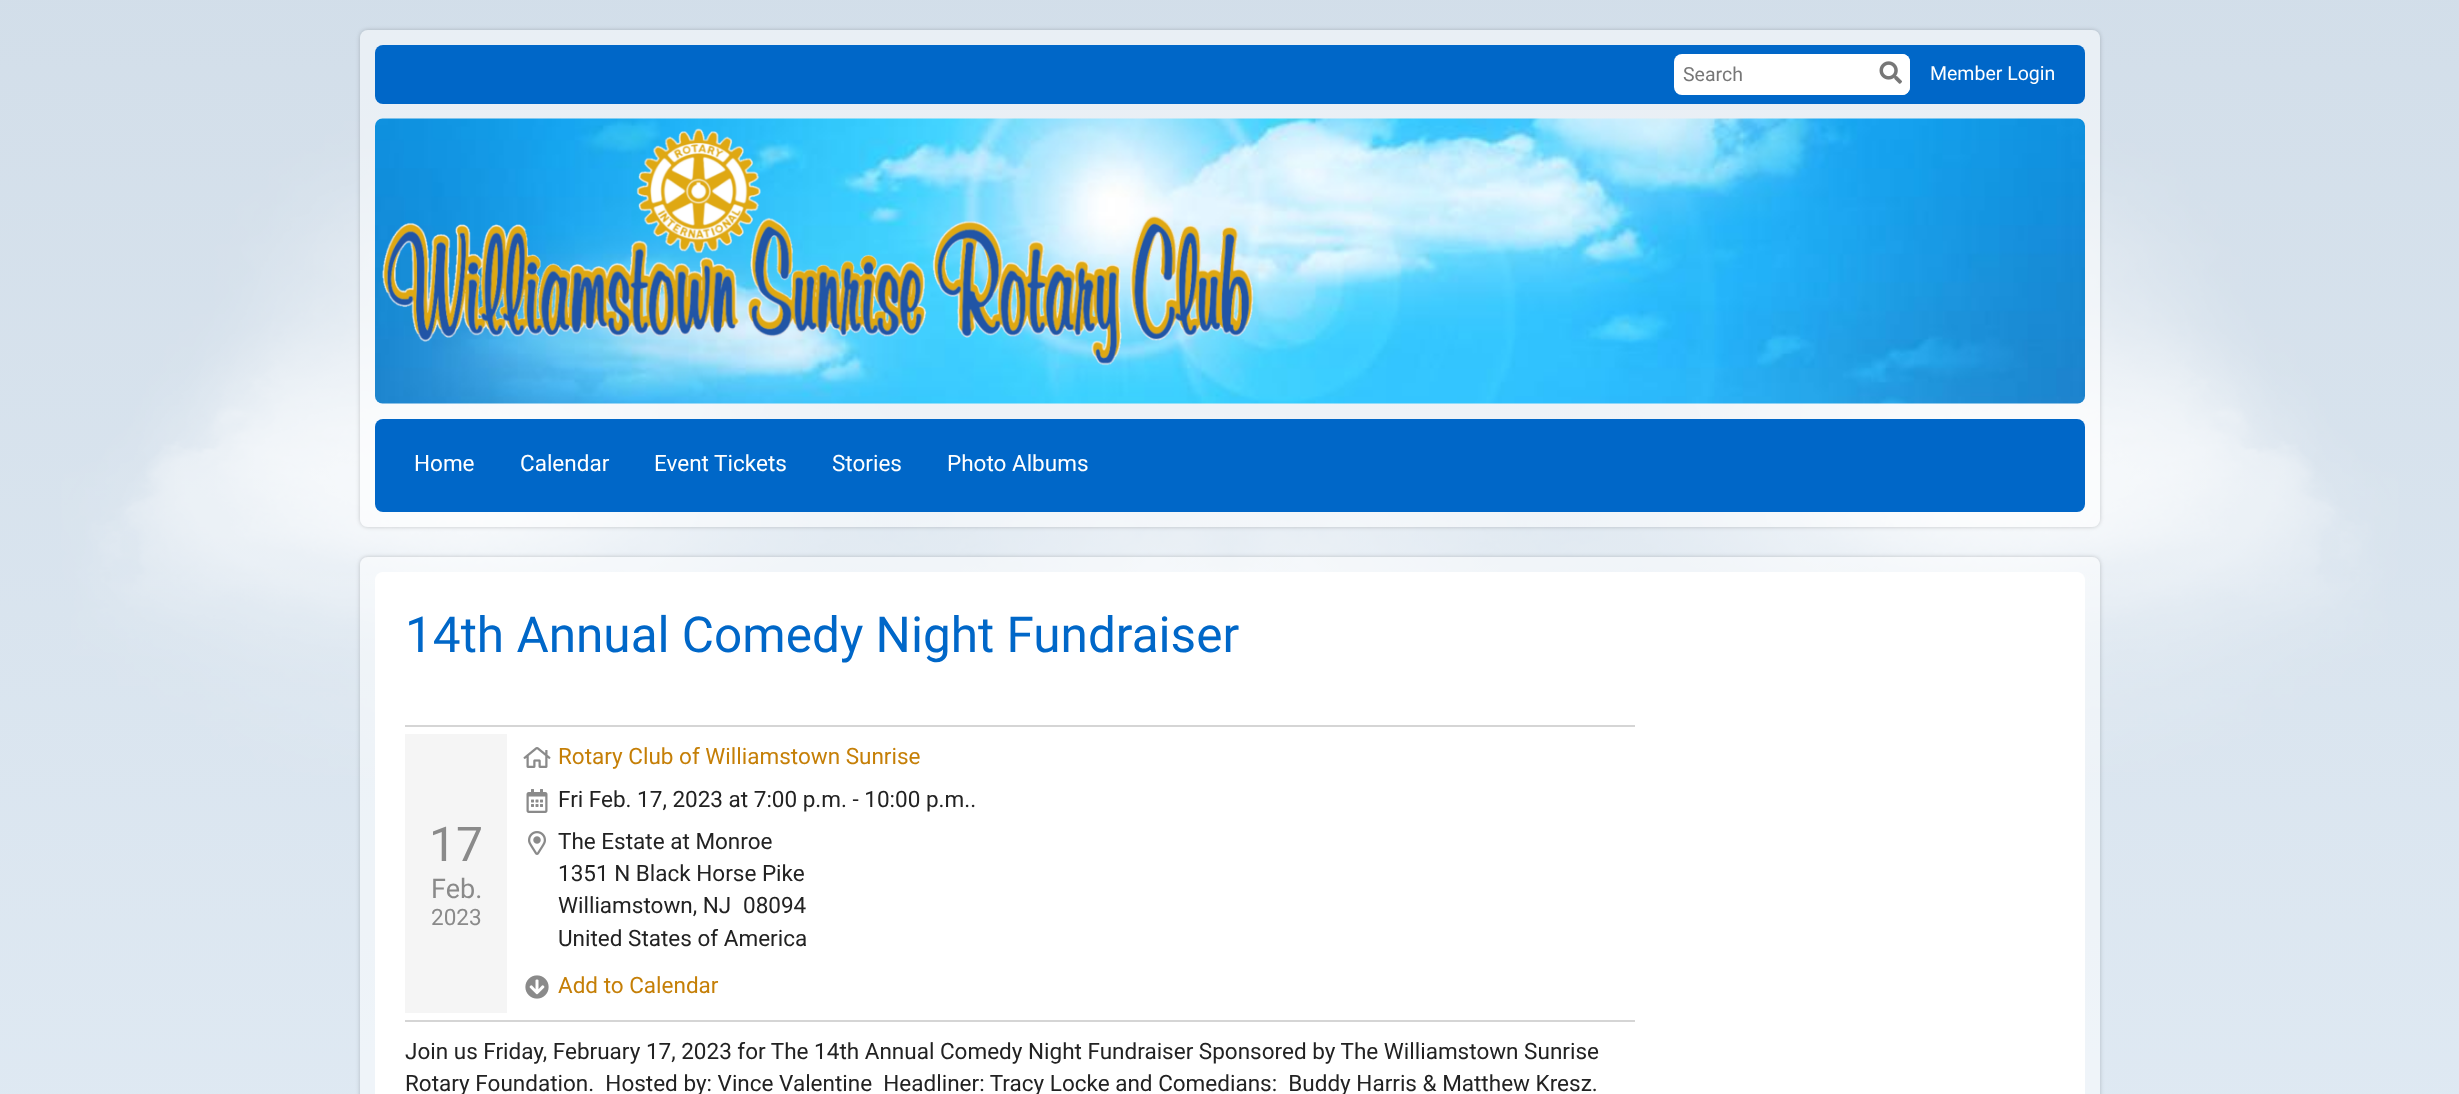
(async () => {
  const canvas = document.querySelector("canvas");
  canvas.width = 2459;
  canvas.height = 1094;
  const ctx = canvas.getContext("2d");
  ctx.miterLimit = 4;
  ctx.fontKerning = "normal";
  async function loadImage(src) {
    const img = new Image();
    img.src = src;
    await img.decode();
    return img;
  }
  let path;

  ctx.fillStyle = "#ffffff";
  ctx.fillRect(0, 0, 2459, 1094);
  ctx.drawImage(await loadImage("img/1.png"), 0, 0, 2459, 1094);
  ctx.save();
  path = new Path2D("M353 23H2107V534H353ZM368 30H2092C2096.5 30 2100 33.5 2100 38V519C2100 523.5 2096.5 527 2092 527H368C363.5 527 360 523.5 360 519V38C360 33.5 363.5 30 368 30Z");
  ctx.clip(path, "evenodd");
  ctx.fillStyle = "rgba(0, 0, 0, 0.2)";
  ctx.filter = "blur(2px)";
  ctx.beginPath();
  ctx.roundRect(360, 30, 1740, 497, 8);
  ctx.fill();
  ctx.filter = "none";
  ctx.restore();
  ctx.fillStyle = "rgba(255, 255, 255, 0.5)";
  ctx.beginPath();
  ctx.roundRect(360, 30, 1740, 497, 8);
  ctx.fill();
  ctx.fillStyle = "#0067c8";
  ctx.beginPath();
  ctx.roundRect(375, 45, 1710, 59, 8);
  ctx.fill();
  ctx.fillStyle = "#ffffff";
  ctx.beginPath();
  ctx.roundRect(1674, 54, 236, 41, 8);
  ctx.fill();
  ctx.beginPath();
  ctx.roundRect(1872, 54, 38, 41, 8);
  ctx.fill();
  ctx.drawImage(await loadImage("img/2.png"), 1879, 61, 23, 23);
  ctx.drawImage(await loadImage("img/3.png"), 375, 118, 1710, 286);
  ctx.drawImage(await loadImage("img/4.png"), 382, 128, 872, 238);
  ctx.fillStyle = "#0067c8";
  ctx.beginPath();
  ctx.roundRect(375, 419, 1710, 93, 8);
  ctx.fill();
  ctx.save();
  path = new Path2D("M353 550H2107V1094H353ZM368 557H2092C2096.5 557 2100 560.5 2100 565V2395C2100 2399.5 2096.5 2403 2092 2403H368C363.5 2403 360 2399.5 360 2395V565C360 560.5 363.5 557 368 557Z");
  ctx.clip(path, "evenodd");
  ctx.fillStyle = "rgba(0, 0, 0, 0.2)";
  ctx.filter = "blur(2px)";
  ctx.beginPath();
  ctx.roundRect(360, 557, 1740, 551, 8);
  ctx.fill();
  ctx.filter = "none";
  ctx.restore();
  ctx.fillStyle = "rgba(255, 255, 255, 0.5)";
  ctx.beginPath();
  ctx.roundRect(360, 557, 1740, 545, 8);
  ctx.fill();
  ctx.fillStyle = "#ffffff";
  ctx.beginPath();
  ctx.roundRect(375, 572, 1710, 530, 8);
  ctx.fill();
  for (const [x, y, w, h, color] of [
    [405, 725, 1230, 2, "#d5d5d5"],
    [405, 1020, 1230, 2, "#d5d5d5"],
    [405, 734, 102, 279, "#f5f5f5"],
  ]) {
    ctx.fillStyle = color;
    ctx.fillRect(x, y, w, h);
  }
  ctx.drawImage(await loadImage("img/5.png"), 523, 747, 28, 21);
  ctx.drawImage(await loadImage("img/6.png"), 526, 789, 22, 24);
  ctx.drawImage(await loadImage("img/7.png"), 528, 831, 18, 24);
  ctx.drawImage(await loadImage("img/8.png"), 525, 975, 24, 24);
  ctx.font = "19.5px Roboto";
  ctx.fillStyle = "#777777";
  ctx.fillText("Search", 1683, 81);
  ctx.fillStyle = "#ffffff";
  ctx.fillText("Member Login", 1930, 80);
  ctx.font = "22.5px Roboto";
  for (const [text, x, y] of [
    ["Home", 414, 471],
    ["Calendar", 520, 471],
    ["Event Tickets", 654, 471],
    ["Stories", 832, 471],
    ["Photo Albums", 947, 471],
  ]) {
    ctx.fillText(text, x, y);
  }
  ctx.font = "49.5px Roboto";
  ctx.fillStyle = "#0067c8";
  ctx.fillText("14th Annual Comedy Night Fundraiser", 405, 652);
  ctx.font = "48px Roboto";
  ctx.fillStyle = "#8a8a8a";
  ctx.fillText("17", 429, 861);
  ctx.font = "27px Roboto";
  ctx.fillText("Feb.", 431, 898);
  ctx.font = "22.5px Roboto";
  ctx.fillText("2023", 431, 925);
  ctx.fillStyle = "#c57f07";
  ctx.fillText("Rotary Club of Williamstown Sunrise", 558, 764);
  ctx.fillStyle = "#222222";
  for (const [text, x, y] of [
    ["Fri Feb. 17, 2023 at 7:00 p.m. - 10:00 p.m..", 558, 807],
    ["The Estate at Monroe", 558, 849],
    ["1351 N Black Horse Pike", 558, 881],
    ["Williamstown, NJ", 558, 913],
    ["08094", 743, 913],
    ["United States of America", 558, 946],
  ]) {
    ctx.fillText(text, x, y);
  }
  ctx.fillStyle = "#c57f07";
  ctx.fillText("Add to Calendar", 558, 993);
  ctx.fillStyle = "#222222";
  ctx.fillText("Join us Friday, February 17, 2023 for The 14th Annual Comedy Night Fundraiser Sponsored by The Williamstown Sunrise", 405, 1059);
  ctx.fillText("Rotary Foundation.  Hosted by: Vince Valentine  Headliner: Tracy Locke and Comedians:  Buddy Harris & Matthew Kresz.", 405, 1091);
})();
